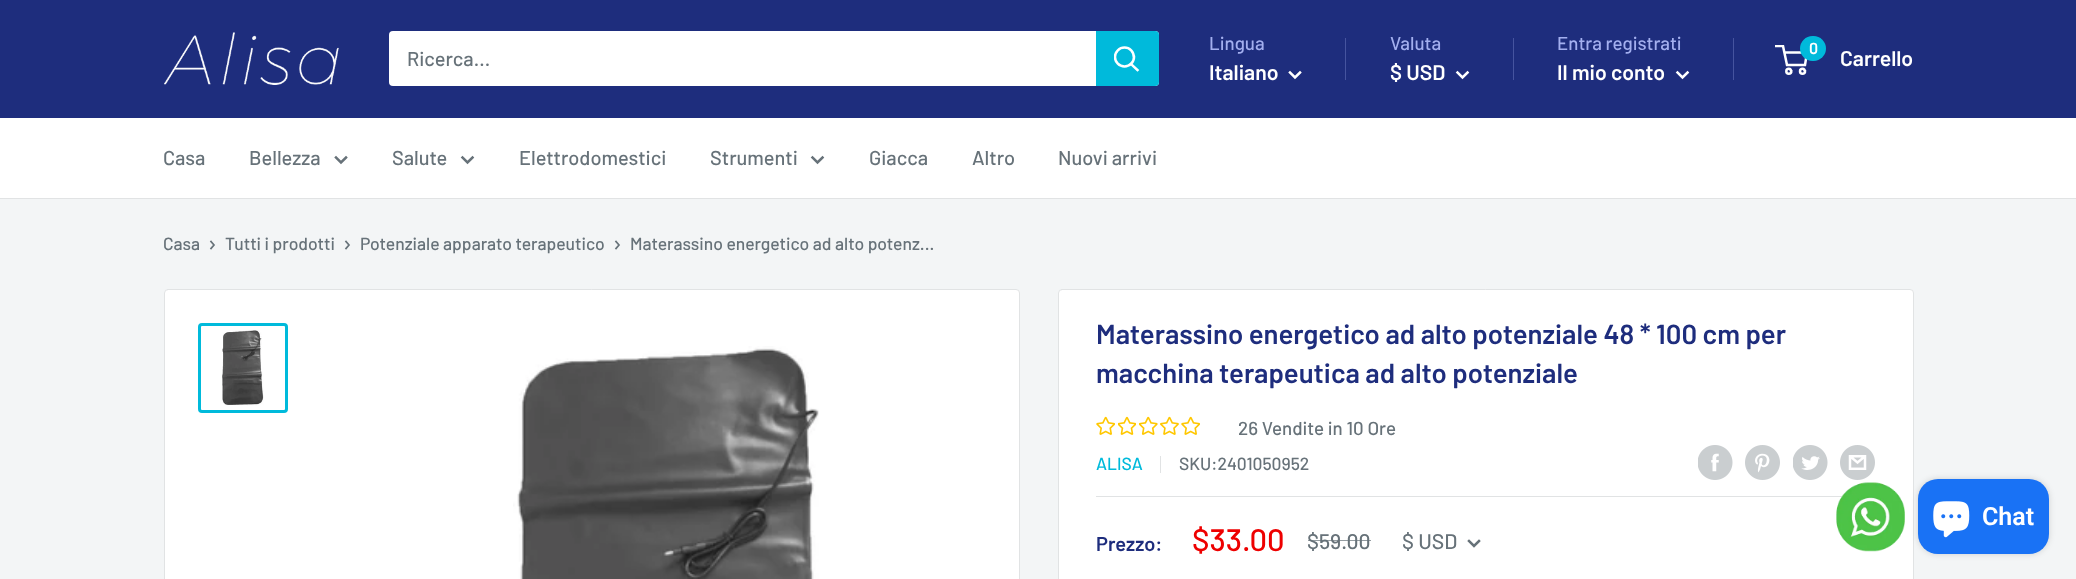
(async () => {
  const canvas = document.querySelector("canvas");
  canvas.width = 2076;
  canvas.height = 579;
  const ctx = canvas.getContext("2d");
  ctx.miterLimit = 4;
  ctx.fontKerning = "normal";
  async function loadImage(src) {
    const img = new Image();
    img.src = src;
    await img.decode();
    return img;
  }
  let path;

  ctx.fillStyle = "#f3f5f6";
  ctx.fillRect(0, 0, 2076, 579);
  ctx.fillStyle = "#1e2d7d";
  ctx.fillRect(0, 0, 2076, 118);
  ctx.drawImage(await loadImage("img/1.png"), 164, 32, 175, 53);
  ctx.fillStyle = "#ffffff";
  ctx.beginPath();
  ctx.roundRect(389, 31, 770, 55, 4);
  ctx.fill();
  ctx.fillStyle = "#00badb";
  ctx.beginPath();
  ctx.roundRect(1096, 31, 63, 55, [0, 4, 4, 0]);
  ctx.fill();
  path = new Path2D("M1137.5 70L1131 64");
  ctx.strokeStyle = "#ffffff";
  ctx.lineWidth = 2.5;
  ctx.lineCap = "square";
  ctx.stroke(path);
  ctx.save();
  ctx.beginPath();
  ctx.rect(1114, 46, 26, 27);
  ctx.clip();
  ctx.beginPath();
  ctx.arc(1124.5, 57, 9.5, 0, Math.PI * 2);
  ctx.stroke();
  ctx.restore();
  path = new Path2D("M1300 72.5L1295 77.5L1290 72.5");
  ctx.stroke(path);
  ctx.fillStyle = "#46549f";
  ctx.fillRect(1345, 38, 1, 42);
  ctx.fillRect(1513, 38, 1, 42);
  path = new Path2D("M1467.5 72.5L1462.5 77.5L1457.5 72.5");
  ctx.stroke(path);
  ctx.fillRect(1733, 38, 1, 42);
  path = new Path2D("M1687.5 72.5L1682.5 77.5L1677.5 72.5");
  ctx.stroke(path);
  ctx.beginPath();
  ctx.arc(1788.8, 71.2, 2.5, 0, Math.PI * 2);
  ctx.stroke();
  ctx.beginPath();
  ctx.arc(1802.5, 71.2, 2.5, 0, Math.PI * 2);
  ctx.stroke();
  ctx.save();
  ctx.beginPath();
  ctx.rect(1775, 45, 34, 30);
  ctx.clip();
  path = new Path2D("M1784 52.5H1807L1805 65H1787L1783 46H1775");
  ctx.lineCap = "butt";
  ctx.stroke(path);
  ctx.restore();
  ctx.fillStyle = "#00badb";
  ctx.beginPath();
  ctx.roundRect(1800, 36, 26, 25, 12.5);
  ctx.fill();
  ctx.fillStyle = "#ffffff";
  ctx.fillRect(0, 118, 2076, 80);
  ctx.fillStyle = "#e1e3e4";
  ctx.fillRect(0, 198, 2076, 1);
  path = new Path2D("M346 157.5L341 162.5L336 157.5");
  ctx.strokeStyle = "#677279";
  ctx.stroke(path);
  path = new Path2D("M472.5 157.5L467.5 162.5L462.5 157.5");
  ctx.stroke(path);
  path = new Path2D("M822.5 157.5L817.5 162.5L812.5 157.5");
  ctx.stroke(path);
  path = new Path2D("M211 241.5L214 245L211 248.5");
  ctx.lineWidth = 1.7;
  ctx.stroke(path);
  path = new Path2D("M346 241.5L349 245L346 248.5");
  ctx.stroke(path);
  path = new Path2D("M616 241.5L619 245L616 248.5");
  ctx.stroke(path);
  ctx.fillStyle = "#ffffff";
  ctx.beginPath();
  ctx.roundRect(164.5, 289.5, 855, 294, 3.5);
  ctx.fill();
  ctx.strokeStyle = "#e1e3e4";
  ctx.lineWidth = 1;
  ctx.stroke();
  ctx.beginPath();
  ctx.roundRect(199.5, 324.5, 87, 87, 2.5);
  ctx.strokeStyle = "#00badb";
  ctx.lineWidth = 3;
  ctx.stroke();
  ctx.drawImage(await loadImage("img/2.png"), 222, 330, 42, 76);
  ctx.drawImage(await loadImage("img/3.png"), 513, 346, 306, 233);
  ctx.beginPath();
  ctx.roundRect(1058.5, 289.5, 855, 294, 3.5);
  ctx.fill();
  ctx.strokeStyle = "#e1e3e4";
  ctx.lineWidth = 1;
  ctx.stroke();
  ctx.drawImage(await loadImage("img/4.png"), 1096, 416, 19, 19);
  ctx.drawImage(await loadImage("img/5.png"), 1118, 416, 18, 19);
  ctx.drawImage(await loadImage("img/6.png"), 1139, 416, 19, 19);
  ctx.drawImage(await loadImage("img/7.png"), 1160, 416, 19, 19);
  ctx.drawImage(await loadImage("img/4.png"), 1181, 416, 19, 19);
  ctx.fillStyle = "#e1e3e4";
  ctx.fillRect(1160, 456, 1, 17);
  ctx.drawImage(await loadImage("img/8.png"), 1698, 445, 35, 35);
  ctx.drawImage(await loadImage("img/9.png"), 1745, 445, 35, 35);
  ctx.drawImage(await loadImage("img/10.png"), 1793, 445, 35, 35);
  ctx.drawImage(await loadImage("img/11.png"), 1840, 445, 35, 35);
  ctx.fillRect(1096, 496, 747, 1);
  path = new Path2D("M1479 541L1474 546L1469 541");
  ctx.strokeStyle = "#677279";
  ctx.lineWidth = 2.5;
  ctx.stroke(path);
  ctx.drawImage(await loadImage("img/12.png"), 1836, 482, 69, 70);
  ctx.fillStyle = "rgba(0, 0, 0, 0.15)";
  ctx.filter = "blur(3px)";
  ctx.beginPath();
  ctx.roundRect(1918, 479, 131, 75, 20);
  ctx.fill();
  ctx.filter = "none";
  ctx.fillStyle = "#1972f5";
  ctx.beginPath();
  ctx.roundRect(1918, 479, 131, 75, 20);
  ctx.fill();
  ctx.drawImage(await loadImage("img/13.png"), 1933, 501, 37, 37);
  ctx.font = "500 20px Barlow";
  ctx.fillStyle = "#677279";
  ctx.fillText("Ricerca...", 407, 66);
  ctx.font = "500 18.75px Barlow";
  ctx.fillStyle = "#a3afef";
  ctx.fillText("Lingua", 1209, 50);
  ctx.font = "600 21.25px Barlow";
  ctx.fillStyle = "#ffffff";
  ctx.fillText("Italiano", 1209, 80);
  ctx.font = "500 18.75px Barlow";
  ctx.fillStyle = "#a3afef";
  ctx.fillText("Valuta", 1390, 50);
  ctx.font = "600 21.25px Barlow";
  ctx.fillStyle = "#ffffff";
  ctx.fillText("$ USD", 1390, 80);
  ctx.font = "500 18.75px Barlow";
  ctx.fillStyle = "#a3afef";
  ctx.fillText("Entra registrati", 1557, 50);
  ctx.font = "600 21.25px Barlow";
  ctx.fillStyle = "#ffffff";
  ctx.fillText("Il mio conto", 1557, 80);
  ctx.font = "600 16px Barlow";
  ctx.fillText("0", 1809, 54);
  ctx.font = "600 21.25px Barlow";
  ctx.fillText("Carrello", 1840, 66);
  ctx.font = "500 20px Barlow";
  ctx.fillStyle = "#677279";
  for (const [text, x, y] of [
    ["Casa", 163, 165],
    ["Bellezza", 249, 165],
    ["Salute", 392, 165],
    ["Elettrodomestici", 519, 165],
    ["Strumenti", 710, 165],
    ["Giacca", 869, 165],
    ["Altro", 972, 165],
    ["Nuovi arrivi", 1058, 165],
  ]) {
    ctx.fillText(text, x, y);
  }
  ctx.font = "500 17.5px Barlow";
  for (const [text, x, y] of [
    ["Casa", 163, 250],
    ["Tutti i prodotti", 225, 250],
    ["Potenziale apparato terapeutico", 360, 250],
    ["Materassino energetico ad alto potenz...", 630, 250],
  ]) {
    ctx.fillText(text, x, y);
  }
  ctx.font = "600 27.5px Barlow";
  ctx.fillStyle = "#1e2d7d";
  ctx.fillText("Materassino energetico ad alto potenziale 48 * 100 cm per", 1096, 344);
  ctx.fillText("macchina terapeutica ad alto potenziale", 1096, 383);
  ctx.font = "500 18.75px Barlow";
  ctx.fillStyle = "#677279";
  ctx.fillText("26 Vendite in 10 Ore", 1238, 435);
  ctx.font = "500 17.5px Barlow";
  ctx.fillStyle = "#00badb";
  ctx.fillText("ALISA", 1096, 470);
  ctx.fillStyle = "#677279";
  ctx.fillText("SKU:2401050952", 1179, 470);
  ctx.font = "600 20px Barlow";
  ctx.fillStyle = "#1e2d7d";
  ctx.fillText("Prezzo:", 1096, 551);
  ctx.font = "500 31px Barlow";
  ctx.fillStyle = "#ee0000";
  ctx.fillText("$33.00", 1192, 551);
  ctx.font = "500 21.25px Barlow";
  ctx.fillStyle = "#677279";
  ctx.fillText("$59.00", 1307, 549);
  ctx.fillStyle = "rgba(103, 114, 121, 0.7)";
  ctx.fillRect(1308, 540, 63, 1);
  ctx.fillStyle = "#677279";
  ctx.fillText("$ USD", 1402, 549);
  ctx.font = "600 25px Roboto";
  ctx.fillStyle = "#ffffff";
  ctx.fillText("Chat", 1982, 525);
})();
